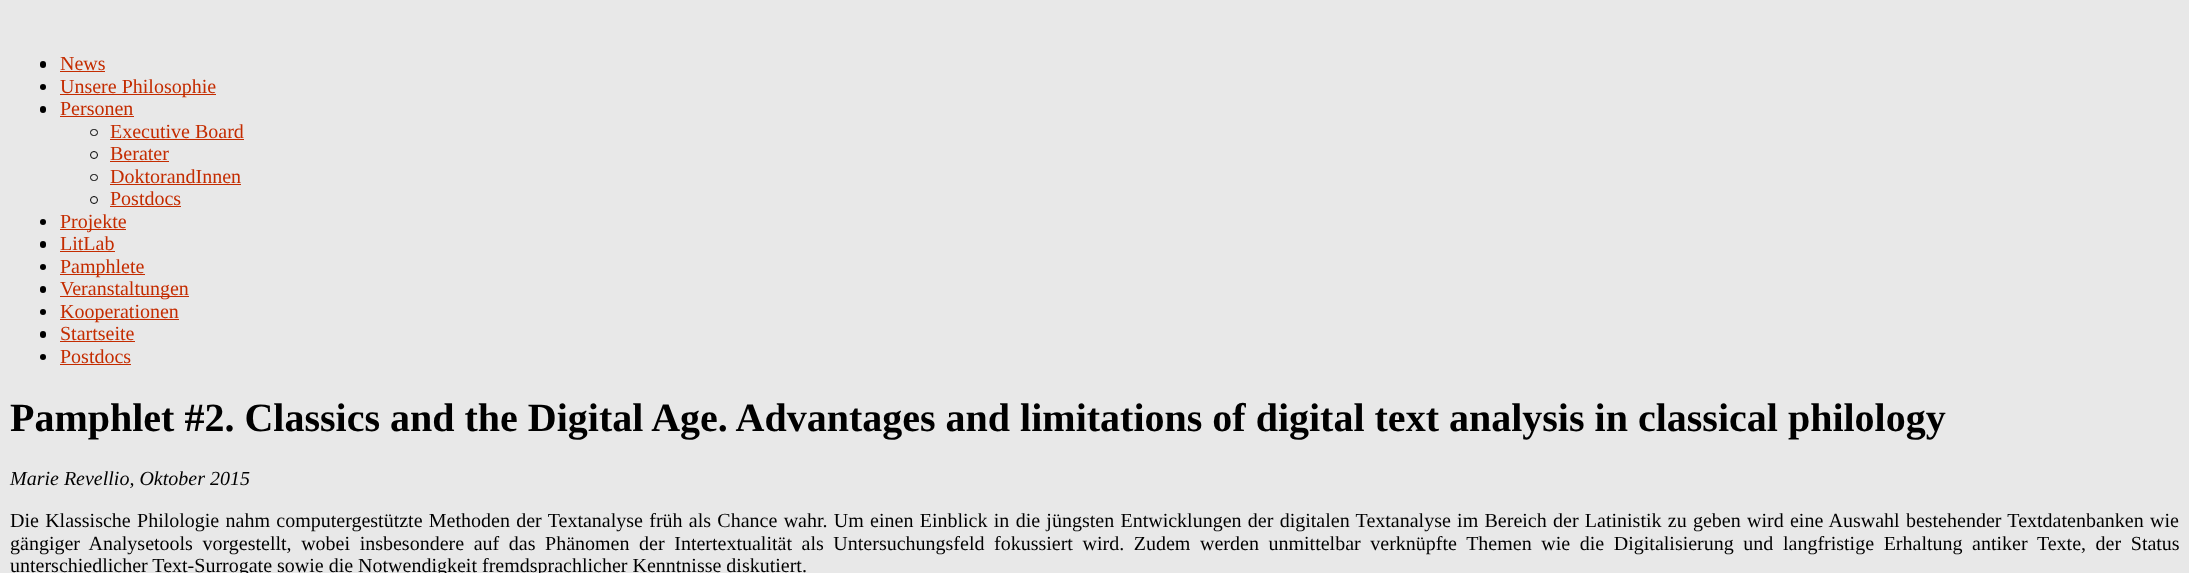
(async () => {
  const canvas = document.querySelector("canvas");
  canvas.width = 2189;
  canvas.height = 573;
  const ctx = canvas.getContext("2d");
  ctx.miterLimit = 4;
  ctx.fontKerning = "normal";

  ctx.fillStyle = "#e8e8e8";
  ctx.fillRect(0, 0, 2189, 573);
  ctx.fillStyle = "#000000";
  ctx.beginPath();
  ctx.roundRect(40, 61, 6, 7, 3);
  ctx.fill();
  ctx.fillStyle = "#c42c00";
  ctx.fillRect(60, 71, 45, 1);
  ctx.fillStyle = "#000000";
  ctx.beginPath();
  ctx.arc(43, 87, 3, 0, Math.PI * 2);
  ctx.fill();
  ctx.fillStyle = "#c42c00";
  ctx.fillRect(60, 94, 156, 1);
  ctx.fillStyle = "#000000";
  ctx.beginPath();
  ctx.roundRect(40, 106, 6, 7, 3);
  ctx.fill();
  ctx.fillStyle = "#c42c00";
  ctx.fillRect(60, 116, 74, 1);
  ctx.beginPath();
  ctx.roundRect(90.5, 129.5, 7, 6, 3);
  ctx.strokeStyle = "#000000";
  ctx.stroke();
  ctx.fillRect(110, 139, 134, 1);
  ctx.beginPath();
  ctx.arc(94, 155, 3.5, 0, Math.PI * 2);
  ctx.stroke();
  ctx.fillRect(110, 161, 59, 1);
  ctx.beginPath();
  ctx.roundRect(90.5, 174.5, 7, 6, 3);
  ctx.stroke();
  ctx.fillRect(110, 184, 131, 1);
  ctx.beginPath();
  ctx.arc(94, 200, 3.5, 0, Math.PI * 2);
  ctx.stroke();
  ctx.fillRect(110, 206, 71, 1);
  ctx.fillStyle = "#000000";
  ctx.beginPath();
  ctx.arc(43, 222, 3, 0, Math.PI * 2);
  ctx.fill();
  ctx.fillStyle = "#c42c00";
  ctx.fillRect(60, 229, 66, 1);
  ctx.fillStyle = "#000000";
  ctx.beginPath();
  ctx.roundRect(40, 241, 6, 7, 3);
  ctx.fill();
  ctx.fillStyle = "#c42c00";
  ctx.fillRect(60, 251, 55, 1);
  ctx.fillStyle = "#000000";
  ctx.beginPath();
  ctx.arc(43, 267, 3, 0, Math.PI * 2);
  ctx.fill();
  ctx.fillStyle = "#c42c00";
  ctx.fillRect(60, 274, 85, 1);
  ctx.fillStyle = "#000000";
  ctx.beginPath();
  ctx.roundRect(40, 286, 6, 7, 3);
  ctx.fill();
  ctx.fillStyle = "#c42c00";
  ctx.fillRect(60, 296, 129, 1);
  ctx.fillStyle = "#000000";
  ctx.beginPath();
  ctx.arc(43, 312, 3, 0, Math.PI * 2);
  ctx.fill();
  ctx.fillStyle = "#c42c00";
  ctx.fillRect(60, 319, 119, 1);
  ctx.fillStyle = "#000000";
  ctx.beginPath();
  ctx.roundRect(40, 331, 6, 7, 3);
  ctx.fill();
  ctx.fillStyle = "#c42c00";
  ctx.fillRect(60, 341, 75, 1);
  ctx.fillStyle = "#000000";
  ctx.beginPath();
  ctx.arc(43, 357, 3, 0, Math.PI * 2);
  ctx.fill();
  ctx.fillStyle = "#c42c00";
  ctx.fillRect(60, 364, 71, 1);
  ctx.font = "20px Liberation Serif";
  for (const [text, x, y] of [
    ["News", 60, 70],
    ["Unsere Philosophie", 60, 93],
    ["Personen", 60, 115],
    ["Executive Board", 110, 138],
    ["Berater", 110, 160],
    ["DoktorandInnen", 110, 183],
    ["Postdocs", 110, 205],
    ["Projekte", 60, 228],
    ["LitLab", 60, 250],
    ["Pamphlete", 60, 273],
    ["Veranstaltungen", 60, 295],
    ["Kooperationen", 60, 318],
    ["Startseite", 60, 340],
    ["Postdocs", 60, 363],
  ]) {
    ctx.fillText(text, x, y);
  }
  ctx.font = "bold 40px Liberation Serif";
  ctx.fillStyle = "#000000";
  ctx.fillText("Pamphlet #2. Classics and the Digital Age. Advantages and limitations of digital text analysis in classical philology", 10, 431);
  ctx.font = "italic 20px Liberation Serif";
  ctx.fillText("Marie Revellio, Oktober 2015", 10, 485);
  ctx.wordSpacing = "1.3px";
  ctx.font = "20px Liberation Serif";
  ctx.fillText("Die Klassische Philologie nahm computergestützte Methoden der Textanalyse früh als Chance wahr. Um einen Einblick in die jüngsten Entwicklungen der digitalen Textanalyse im Bereich der Latinistik zu geben wird eine Auswahl bestehender Textdatenbanken wie", 10, 527);
  ctx.wordSpacing = "4.6px";
  ctx.fillText("gängiger Analysetools vorgestellt, wobei insbesondere auf das Phänomen der Intertextualität als Untersuchungsfeld fokussiert wird. Zudem werden unmittelbar verknüpfte Themen wie die Digitalisierung und langfristige Erhaltung antiker Texte, der Status", 10, 550);
  ctx.wordSpacing = "0px";
  ctx.fillText("unterschiedlicher Text-Surrogate sowie die Notwendigkeit fremdsprachlicher Kenntnisse diskutiert.", 10, 572);
})();
